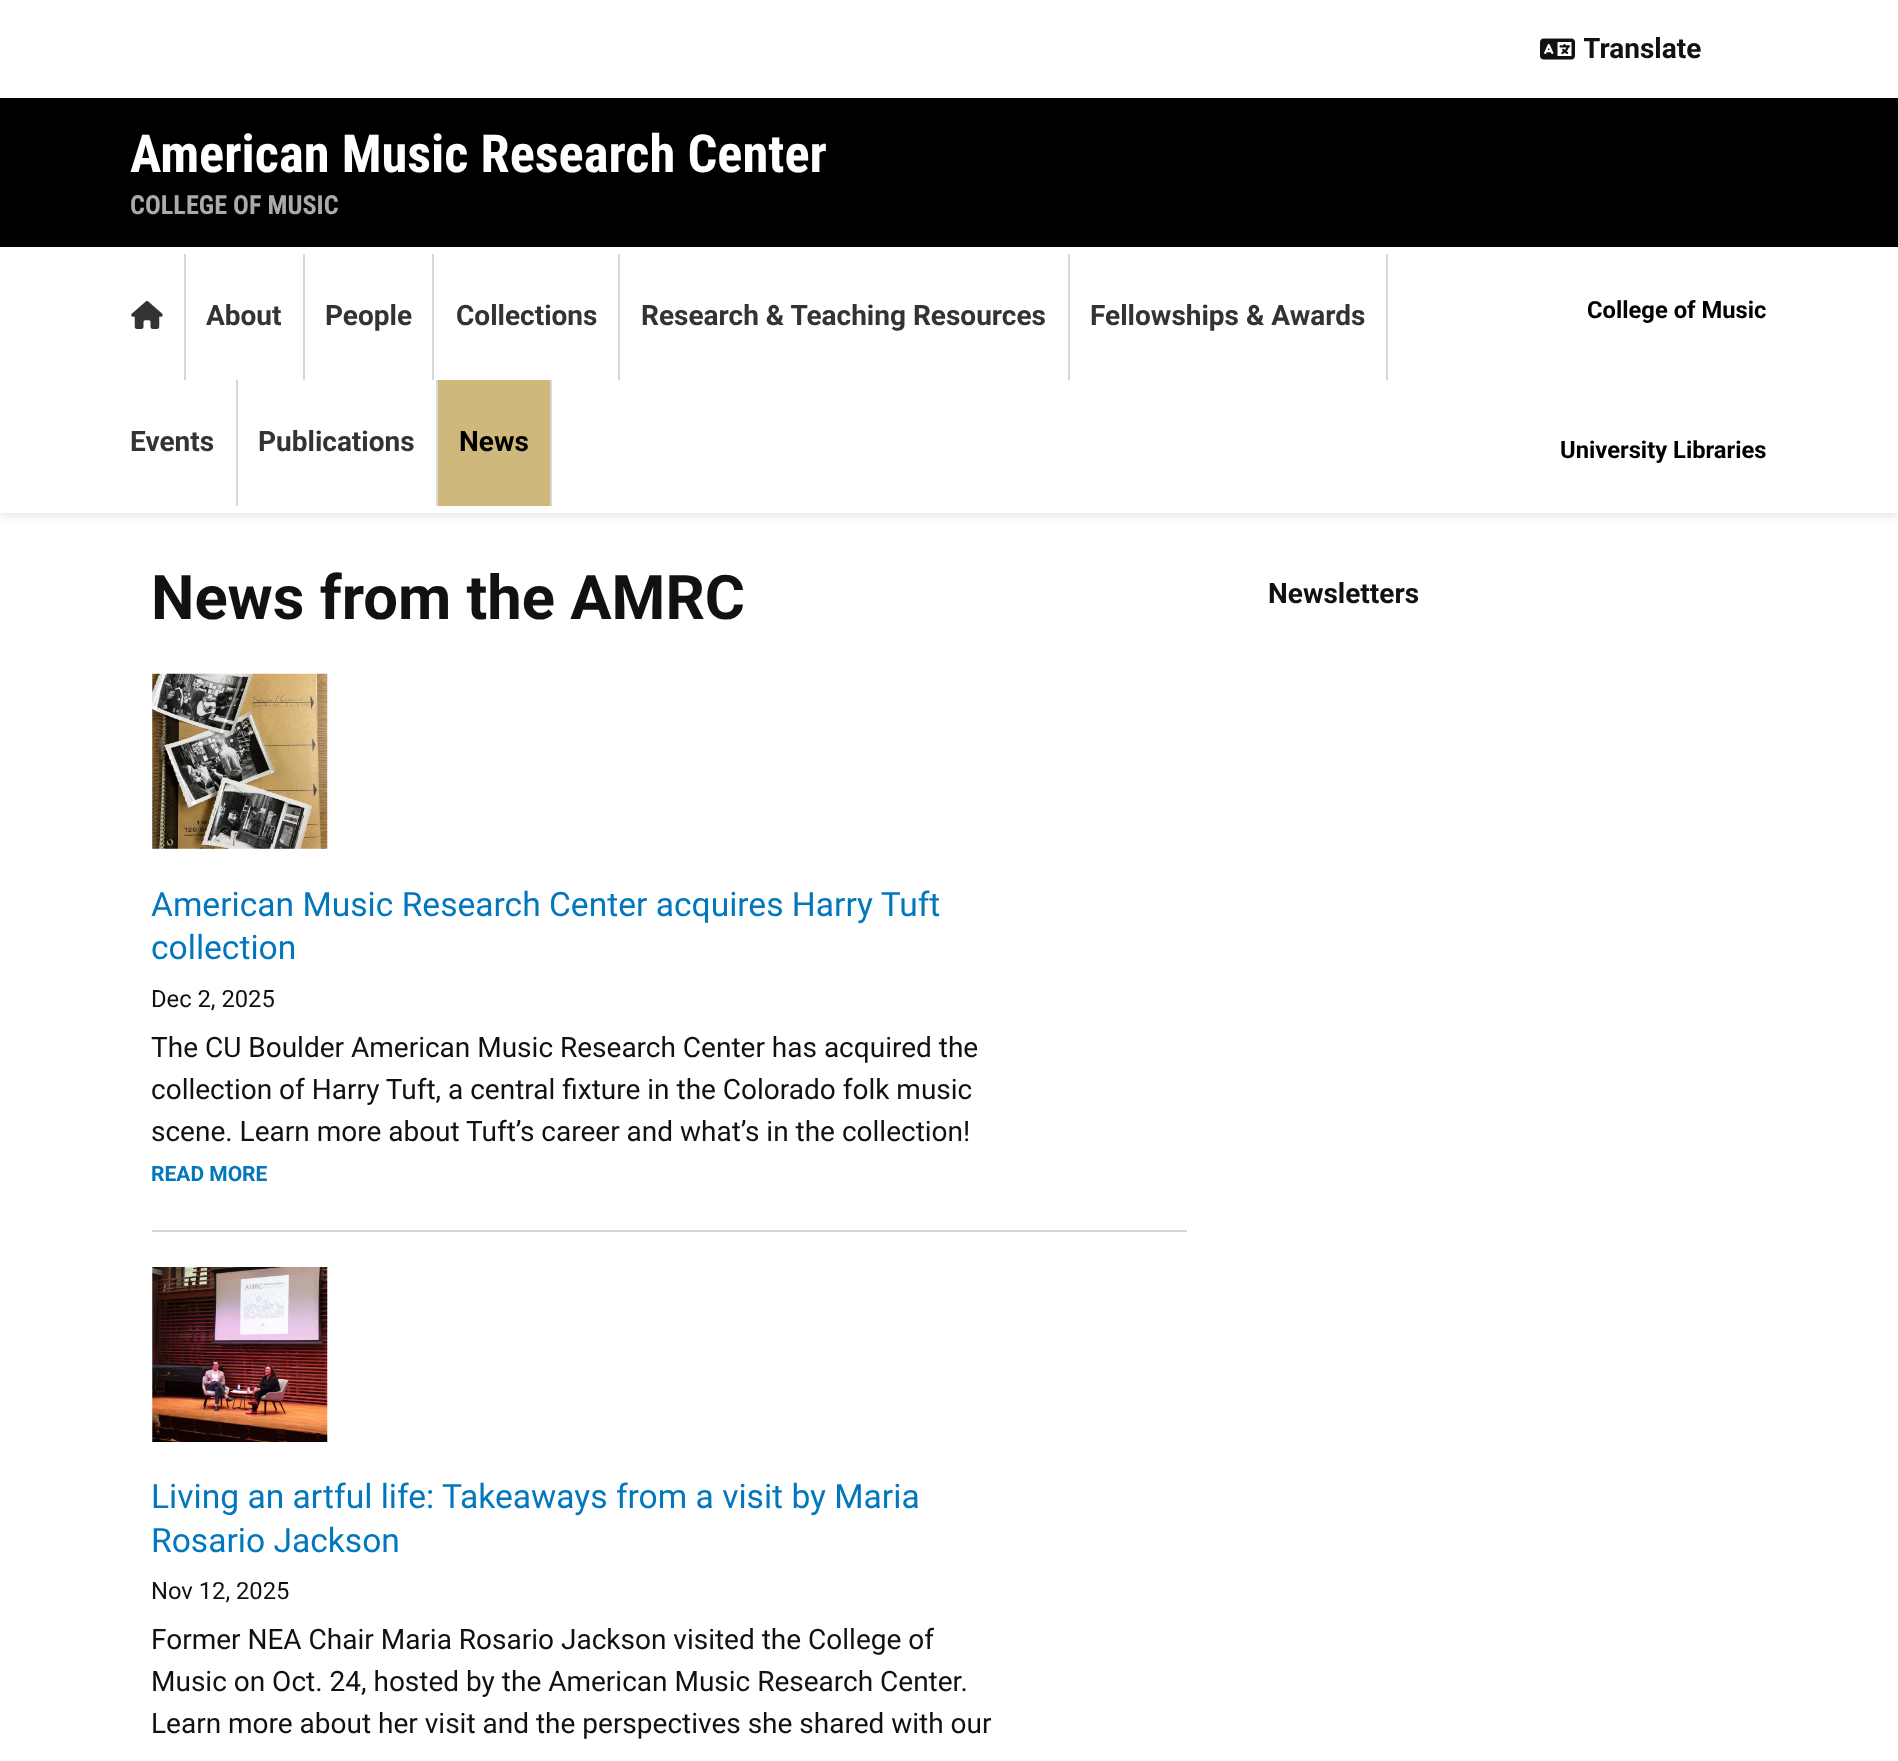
(async () => {
  const canvas = document.querySelector("canvas");
  canvas.width = 1898;
  canvas.height = 1761;
  const ctx = canvas.getContext("2d");
  ctx.miterLimit = 4;
  ctx.fontKerning = "normal";
  async function loadImage(src) {
    const img = new Image();
    img.src = src;
    await img.decode();
    return img;
  }

  ctx.fillStyle = "#ffffff";
  ctx.fillRect(0, 0, 1898, 1761);
  ctx.drawImage(await loadImage("img/1.png"), 1540, 38, 35, 22);
  ctx.fillStyle = "rgba(0, 0, 0, 0.1)";
  ctx.filter = "blur(4.5px)";
  ctx.beginPath();
  ctx.rect(0, 250, 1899, 266);
  ctx.fill();
  ctx.filter = "none";
  for (const [x, y, w, h, color] of [
    [0, 98, 1898, 149, "#000000"],
    [0, 247, 1898, 266, "#ffffff"],
    [184, 254, 2, 126, "#d7d7d7"],
  ]) {
    ctx.fillStyle = color;
    ctx.fillRect(x, y, w, h);
  }
  ctx.drawImage(await loadImage("img/2.png"), 131, 301, 32, 28);
  for (const [x, y, w, h, color] of [
    [303, 254, 2, 126, "#d7d7d7"],
    [432, 254, 2, 126, "#d7d7d7"],
    [618, 254, 2, 126, "#d7d7d7"],
    [1068, 254, 2, 126, "#d7d7d7"],
    [1386, 254, 2, 126, "#d7d7d7"],
    [236, 380, 2, 126, "#d7d7d7"],
    [436, 380, 2, 126, "#d7d7d7"],
    [438, 380, 112, 126, "#cfb87c"],
    [550, 380, 2, 126, "#d7d7d7"],
    [152, 1230, 1035, 2, "#d5d5d5"],
  ]) {
    ctx.fillStyle = color;
    ctx.fillRect(x, y, w, h);
  }
  ctx.drawImage(await loadImage("img/3.png"), 152, 673, 176, 176);
  ctx.drawImage(await loadImage("img/4.png"), 152, 1267, 176, 175);
  ctx.save();
  ctx.beginPath();
  ctx.rect(1584, 28, 122, 42);
  ctx.clip();
  ctx.font = "bold 28px Roboto";
  ctx.fillStyle = "#111111";
  ctx.fillText("Translate", 1583, 58);
  ctx.restore();
  ctx.font = "bold 52.5px Roboto Condensed";
  ctx.fillStyle = "#ffffff";
  ctx.fillText("American Music Research Center", 130, 172);
  ctx.font = "bold 26.25px Roboto Condensed";
  ctx.fillStyle = "#aaaaaa";
  ctx.fillText("COLLEGE OF MUSIC", 130, 214);
  ctx.font = "bold 28px Roboto";
  ctx.fillStyle = "#333333";
  for (const [text, x, y] of [
    ["About", 206, 325],
    ["People", 325, 325],
    ["Collections", 456, 325],
    ["Research & Teaching Resources", 641, 325],
    ["Fellowships & Awards", 1090, 325],
    ["Events", 130, 451],
    ["Publications", 258, 451],
  ]) {
    ctx.fillText(text, x, y);
  }
  ctx.fillStyle = "#000000";
  ctx.fillText("News", 459, 451);
  ctx.font = "bold 23.75px Roboto";
  ctx.fillText("College of Music", 1587, 318);
  ctx.fillText("University Libraries", 1560, 458);
  ctx.font = "bold 61.5px Roboto";
  ctx.fillStyle = "#111111";
  ctx.fillText("News from the AMRC", 151, 619);
  ctx.font = "33.6px Roboto";
  ctx.fillStyle = "#0277bd";
  ctx.fillText("American Music Research Center acquires Harry Tuft", 151, 916);
  ctx.fillText("collection", 151, 959);
  ctx.font = "23.75px Roboto";
  ctx.fillStyle = "#111111";
  ctx.fillText("Dec 2, 2025", 151, 1007);
  ctx.font = "28px Roboto";
  for (const [text, x, y] of [
    ["The CU Boulder American Music Research Center has acquired the", 151, 1057],
    ["collection of Harry Tuft, a central fixture in the Colorado folk music", 151, 1099],
    ["scene. Learn more about Tuft’s career and what’s in the collection!", 151, 1141],
  ]) {
    ctx.fillText(text, x, y);
  }
  ctx.font = "bold 21px Roboto";
  ctx.fillStyle = "#0277bd";
  ctx.fillText("READ MORE", 151, 1181);
  ctx.font = "33.6px Roboto";
  ctx.fillText("Living an artful life: Takeaways from a visit by Maria", 151, 1508);
  ctx.fillText("Rosario Jackson", 151, 1552);
  ctx.font = "23.75px Roboto";
  ctx.fillStyle = "#111111";
  ctx.fillText("Nov 12, 2025", 151, 1599);
  ctx.font = "28px Roboto";
  for (const [text, x, y] of [
    ["Former NEA Chair Maria Rosario Jackson visited the College of", 151, 1649],
    ["Music on Oct. 24, hosted by the American Music Research Center.", 151, 1691],
    ["Learn more about her visit and the perspectives she shared with our", 151, 1733],
  ]) {
    ctx.fillText(text, x, y);
  }
  ctx.font = "bold 28px Roboto";
  ctx.fillText("Newsletters", 1268, 603);
})();
